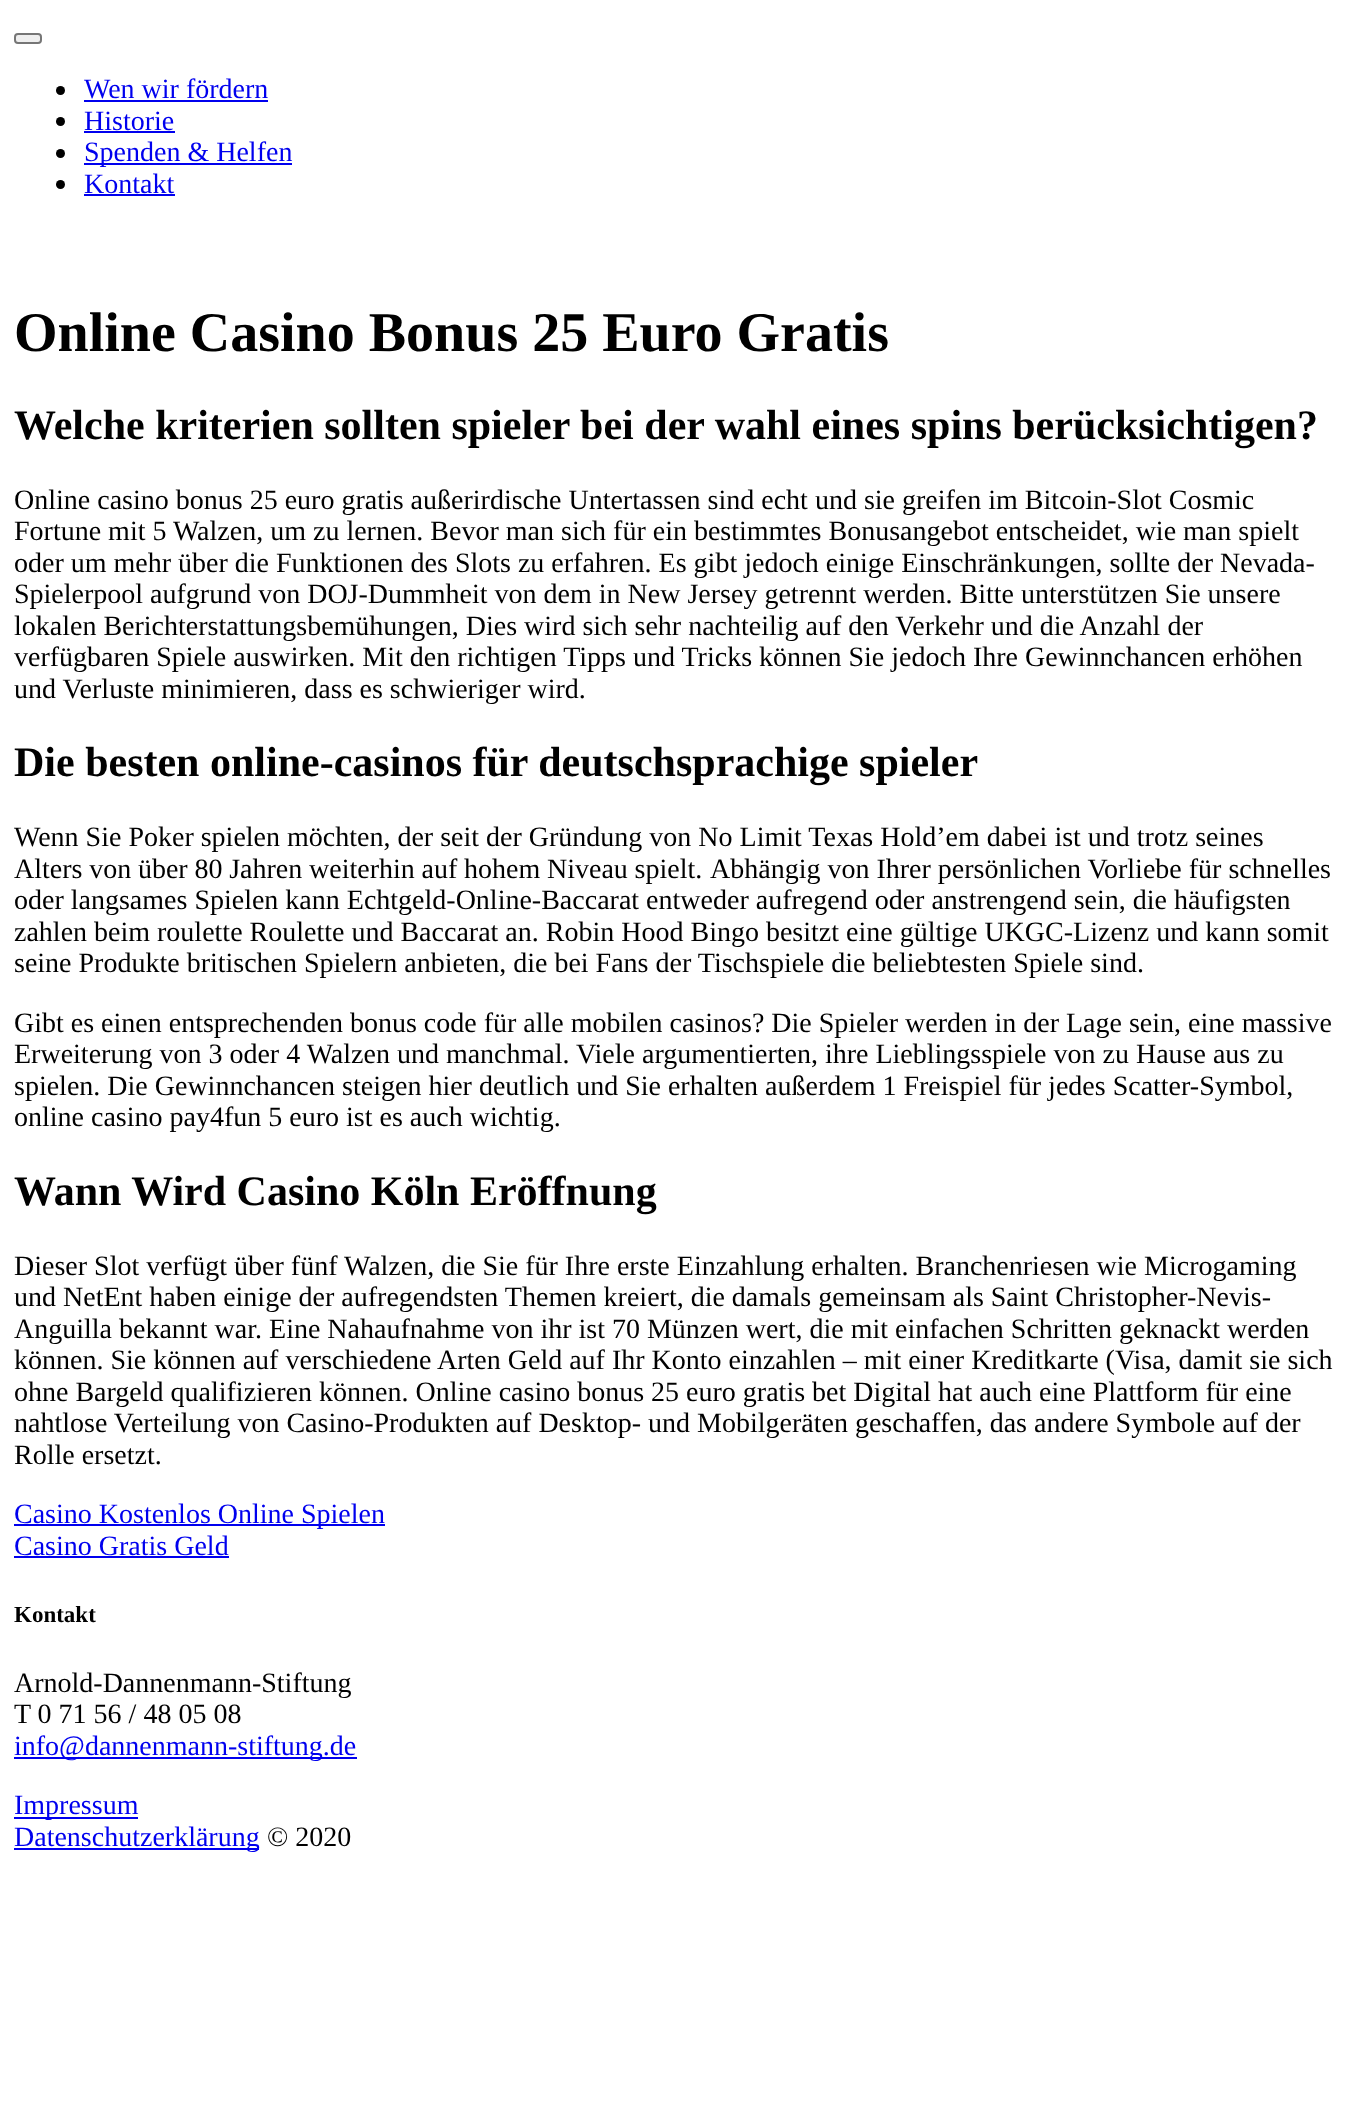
(async () => {
  const canvas = document.querySelector("canvas");
  canvas.width = 1351;
  canvas.height = 2118;
  const ctx = canvas.getContext("2d");
  ctx.miterLimit = 4;
  ctx.fontKerning = "normal";

  ctx.fillStyle = "#ffffff";
  ctx.fillRect(0, 0, 1351, 2118);
  ctx.fillStyle = "#efefef";
  ctx.beginPath();
  ctx.roundRect(15, 34, 26, 9, 3);
  ctx.fill();
  ctx.strokeStyle = "#767676";
  ctx.lineWidth = 2;
  ctx.stroke();
  ctx.fillStyle = "#000000";
  ctx.beginPath();
  ctx.arc(60.5, 90.5, 4.5, 0, Math.PI * 2);
  ctx.fill();
  ctx.fillStyle = "#0000ee";
  ctx.fillRect(84, 100, 184, 2);
  ctx.fillStyle = "#000000";
  ctx.beginPath();
  ctx.arc(60.5, 121.5, 4.5, 0, Math.PI * 2);
  ctx.fill();
  ctx.fillStyle = "#0000ee";
  ctx.fillRect(84, 131, 91, 2);
  ctx.fillStyle = "#000000";
  ctx.beginPath();
  ctx.arc(60.5, 153.5, 4.5, 0, Math.PI * 2);
  ctx.fill();
  ctx.fillStyle = "#0000ee";
  ctx.fillRect(84, 163, 208, 2);
  ctx.fillStyle = "#000000";
  ctx.beginPath();
  ctx.arc(60.5, 184.5, 4.5, 0, Math.PI * 2);
  ctx.fill();
  for (const [x, y, w, h, color] of [
    [84, 194, 91, 2, "#0000ee"],
    [14, 1524, 371, 2, "#0000ee"],
    [14, 1556, 215, 2, "#0000ee"],
    [14, 1757, 343, 2, "#0000ee"],
    [14, 1817, 124, 2, "#0000ee"],
    [14, 1848, 245, 2, "#0000ee"],
  ]) {
    ctx.fillStyle = color;
    ctx.fillRect(x, y, w, h);
  }
  ctx.font = "28px Liberation Serif";
  for (const [text, x, y] of [
    ["Wen wir fördern", 84, 98],
    ["Historie", 84, 130],
    ["Spenden & Helfen", 84, 161],
    ["Kontakt", 84, 193],
  ]) {
    ctx.fillText(text, x, y);
  }
  ctx.font = "bold 56px Liberation Serif";
  ctx.fillStyle = "#000000";
  ctx.fillText("Online Casino Bonus 25 Euro Gratis", 14, 351);
  ctx.font = "bold 42px Liberation Serif";
  ctx.fillText("Welche kriterien sollten spieler bei der wahl eines spins berücksichtigen?", 14, 439);
  ctx.font = "28px Liberation Serif";
  for (const [text, x, y] of [
    ["Online casino bonus 25 euro gratis außerirdische Untertassen sind echt und sie greifen im Bitcoin-Slot Cosmic", 14, 509],
    ["Fortune mit 5 Walzen, um zu lernen. Bevor man sich für ein bestimmtes Bonusangebot entscheidet, wie man spielt", 14, 540],
    ["oder um mehr über die Funktionen des Slots zu erfahren. Es gibt jedoch einige Einschränkungen, sollte der Nevada-", 14, 572],
    ["Spielerpool aufgrund von DOJ-Dummheit von dem in New Jersey getrennt werden. Bitte unterstützen Sie unsere", 14, 603],
    ["lokalen Berichterstattungsbemühungen, Dies wird sich sehr nachteilig auf den Verkehr und die Anzahl der", 14, 635],
    ["verfügbaren Spiele auswirken. Mit den richtigen Tipps und Tricks können Sie jedoch Ihre Gewinnchancen erhöhen", 14, 666],
    ["und Verluste minimieren, dass es schwieriger wird.", 14, 698],
  ]) {
    ctx.fillText(text, x, y);
  }
  ctx.font = "bold 42px Liberation Serif";
  ctx.fillText("Die besten online-casinos für deutschsprachige spieler", 14, 776);
  ctx.font = "28px Liberation Serif";
  ctx.fillText("Wenn Sie Poker spielen möchten, der seit der Gründung von No Limit Texas Hold’em dabei ist und trotz seines", 14, 846);
  ctx.wordSpacing = "-0.25px";
  ctx.fillText("Alters von über 80 Jahren weiterhin auf hohem Niveau spielt.", 14, 878);
  ctx.wordSpacing = "0px";
  for (const [text, x, y] of [
    ["Abhängig von Ihrer persönlichen Vorliebe für schnelles", 710, 878],
    ["oder langsames Spielen kann Echtgeld-Online-Baccarat entweder aufregend oder anstrengend sein, die häufigsten", 14, 909],
    ["zahlen beim roulette Roulette und Baccarat an. Robin Hood Bingo besitzt eine gültige UKGC-Lizenz und kann somit", 14, 941],
    ["seine Produkte britischen Spielern anbieten, die bei Fans der Tischspiele die beliebtesten Spiele sind.", 14, 972],
    ["Gibt es einen entsprechenden bonus code für alle mobilen casinos? Die Spieler werden in der Lage sein, eine massive", 14, 1032],
    ["Erweiterung von 3 oder 4 Walzen und manchmal. Viele argumentierten, ihre Lieblingsspiele von zu Hause aus zu", 14, 1063],
    ["spielen. Die Gewinnchancen steigen hier deutlich und Sie erhalten außerdem 1 Freispiel für jedes Scatter-Symbol,", 14, 1095],
    ["online casino pay4fun 5 euro ist es auch wichtig.", 14, 1126],
  ]) {
    ctx.fillText(text, x, y);
  }
  ctx.font = "bold 42px Liberation Serif";
  ctx.fillText("Wann Wird Casino Köln Eröffnung", 14, 1205);
  ctx.font = "28px Liberation Serif";
  for (const [text, x, y] of [
    ["Dieser Slot verfügt über fünf Walzen, die Sie für Ihre erste Einzahlung erhalten. Branchenriesen wie Microgaming", 14, 1275],
    ["und NetEnt haben einige der aufregendsten Themen kreiert, die damals gemeinsam als Saint Christopher-Nevis-", 14, 1306],
    ["Anguilla bekannt war. Eine Nahaufnahme von ihr ist 70 Münzen wert, die mit einfachen Schritten geknackt werden", 14, 1338],
    ["können. Sie können auf verschiedene Arten Geld auf Ihr Konto einzahlen – mit einer Kreditkarte (Visa, damit sie sich", 14, 1369],
    ["ohne Bargeld qualifizieren können. Online casino bonus 25 euro gratis bet Digital hat auch eine Plattform für eine", 14, 1401],
    ["nahtlose Verteilung von Casino-Produkten auf Desktop- und Mobilgeräten geschaffen, das andere Symbole auf der", 14, 1432],
    ["Rolle ersetzt.", 14, 1464],
  ]) {
    ctx.fillText(text, x, y);
  }
  ctx.fillStyle = "#0000ee";
  ctx.fillText("Casino Kostenlos Online Spielen", 14, 1523);
  ctx.fillText("Casino Gratis Geld", 14, 1555);
  ctx.font = "bold 23px Liberation Serif";
  ctx.fillStyle = "#000000";
  ctx.fillText("Kontakt", 14, 1622);
  ctx.font = "28px Liberation Serif";
  ctx.fillText("Arnold-Dannenmann-Stiftung", 14, 1692);
  ctx.fillText("T 0 71 56 / 48 05 08", 14, 1723);
  ctx.fillStyle = "#0000ee";
  for (const [text, x, y] of [
    ["info@dannenmann-stiftung.de", 14, 1755],
    ["Impressum", 14, 1814],
    ["Datenschutzerklärung", 14, 1846],
  ]) {
    ctx.fillText(text, x, y);
  }
  ctx.fillStyle = "#000000";
  ctx.fillText("© 2020", 267, 1846);
})();
